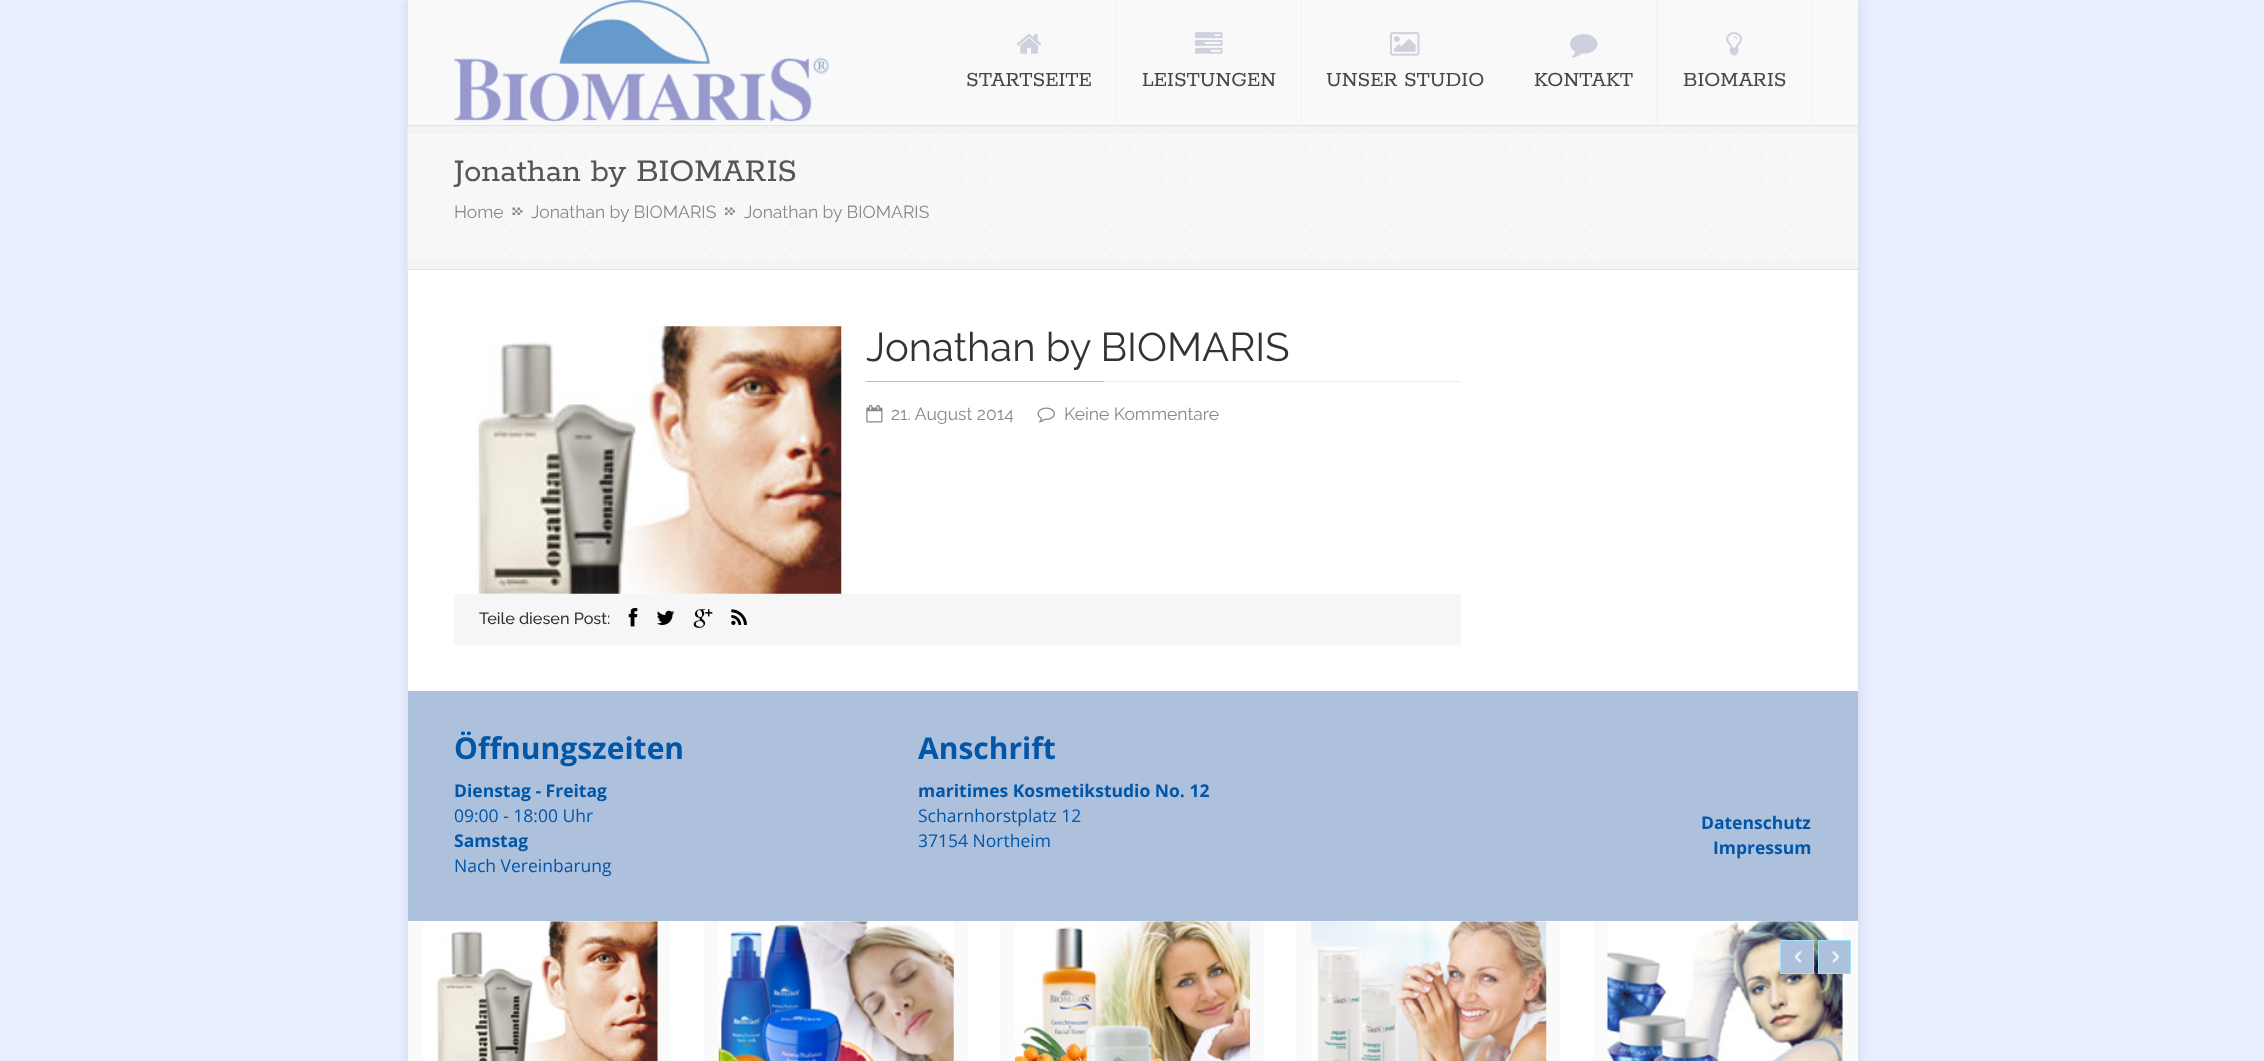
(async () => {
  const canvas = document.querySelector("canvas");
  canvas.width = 2264;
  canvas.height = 1061;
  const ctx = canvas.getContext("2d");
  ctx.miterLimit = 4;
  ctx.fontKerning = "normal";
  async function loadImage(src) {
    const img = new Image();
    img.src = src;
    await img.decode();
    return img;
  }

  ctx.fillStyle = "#e8edff";
  ctx.fillRect(0, 0, 2264, 1061);
  ctx.fillStyle = "rgba(0, 0, 0, 0.1)";
  ctx.filter = "blur(6px)";
  ctx.beginPath();
  ctx.rect(408, 0, 1450, 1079);
  ctx.fill();
  ctx.filter = "none";
  ctx.fillStyle = "#ffffff";
  ctx.fillRect(408, 134, 1450, 927);
  ctx.fillStyle = "#f9f9f9";
  ctx.fillRect(408, 0, 1450, 125);
  ctx.drawImage(await loadImage("img/1.png"), 454, 0, 375, 122);
  ctx.drawImage(await loadImage("img/2.png"), 1114, 0, 2, 125);
  ctx.drawImage(await loadImage("img/3.png"), 1016, 34, 26, 20);
  ctx.drawImage(await loadImage("img/2.png"), 1299, 0, 2, 125);
  ctx.drawImage(await loadImage("img/4.png"), 1195, 32, 28, 22);
  ctx.drawImage(await loadImage("img/5.png"), 1390, 32, 30, 24);
  ctx.fillStyle = "#f5f5f5";
  ctx.fillRect(1655, 0, 3, 125);
  ctx.drawImage(await loadImage("img/6.png"), 1570, 34, 28, 24);
  ctx.drawImage(await loadImage("img/2.png"), 1809, 0, 2, 125);
  ctx.drawImage(await loadImage("img/7.png"), 1726, 32, 16, 24);
  ctx.drawImage(await loadImage("img/8.png"), 407, 125, 1451, 145);
  for (const [x, y, w, h, color] of [
    [408, 125, 1450, 1, "#e3e3e3"],
    [408, 269, 1450, 1, "#e3e3e3"],
    [408, 126, 1450, 8, "#f3f3f3"],
    [408, 261, 1450, 8, "#f3f3f3"],
  ]) {
    ctx.fillStyle = color;
    ctx.fillRect(x, y, w, h);
  }
  ctx.drawImage(await loadImage("img/9.png"), 512, 207, 11, 8);
  ctx.drawImage(await loadImage("img/10.png"), 725, 207, 10, 8);
  ctx.drawImage(await loadImage("img/11.png"), 475, 326, 367, 268);
  ctx.fillStyle = "#ececec";
  ctx.fillRect(1104, 381, 357, 1);
  ctx.fillStyle = "#adc0dc";
  ctx.fillRect(866, 381, 238, 1);
  ctx.drawImage(await loadImage("img/12.png"), 866, 405, 17, 18);
  ctx.drawImage(await loadImage("img/13.png"), 1037, 407, 18, 16);
  ctx.fillStyle = "#f6f6f6";
  ctx.fillRect(454, 594, 1007, 51);
  ctx.drawImage(await loadImage("img/14.png"), 628, 608, 10, 19);
  ctx.drawImage(await loadImage("img/15.png"), 657, 610, 18, 15);
  ctx.drawImage(await loadImage("img/16.png"), 693, 609, 20, 19);
  ctx.drawImage(await loadImage("img/17.png"), 731, 609, 16, 16);
  ctx.fillStyle = "#adc0dc";
  ctx.fillRect(408, 691, 1450, 230);
  ctx.fillStyle = "#fafafa";
  ctx.fillRect(408, 921, 263, 140);
  ctx.drawImage(await loadImage("img/18.png"), 423, 921, 235, 140);
  ctx.fillRect(704, 921, 264, 140);
  ctx.drawImage(await loadImage("img/19.png"), 718, 921, 236, 140);
  ctx.fillRect(1000, 921, 264, 140);
  ctx.drawImage(await loadImage("img/20.png"), 1015, 921, 235, 140);
  ctx.fillRect(1296, 921, 264, 140);
  ctx.drawImage(await loadImage("img/21.png"), 1311, 921, 236, 140);
  ctx.fillRect(1593, 921, 263, 140);
  ctx.drawImage(await loadImage("img/22.png"), 1607, 921, 236, 140);
  ctx.fillStyle = "#adc0dc";
  ctx.fillRect(1781, 941, 32, 32);
  ctx.drawImage(await loadImage("img/23.png"), 1794, 951, 8, 12);
  ctx.strokeStyle = "#9ae4ff";
  ctx.strokeRect(1780.5, 940.5, 33, 33);
  ctx.fillRect(1819, 941, 31, 32);
  ctx.drawImage(await loadImage("img/24.png"), 1832, 951, 8, 12);
  ctx.strokeRect(1818.5, 940.5, 32, 33);
  ctx.font = "22.5px Rokkitt";
  ctx.fillStyle = "#464646";
  for (const [text, x, y] of [
    ["STARTSEITE", 966, 86],
    ["LEISTUNGEN", 1142, 86],
    ["UNSER STUDIO", 1326, 86],
    ["KONTAKT", 1534, 86],
    ["BIOMARIS", 1683, 86],
  ]) {
    ctx.fillText(text, x, y);
  }
  ctx.font = "35px Rokkitt";
  ctx.fillStyle = "#555555";
  ctx.fillText("Jonathan by BIOMARIS", 454, 181);
  ctx.font = "17.5px Raleway";
  ctx.fillStyle = "#888888";
  for (const [text, x, y] of [
    ["Home", 454, 218],
    ["Jonathan by BIOMARIS", 531, 218],
    ["Jonathan by BIOMARIS", 744, 218],
  ]) {
    ctx.fillText(text, x, y);
  }
  ctx.font = "40px Raleway";
  ctx.fillStyle = "#333333";
  ctx.fillText("Jonathan by BIOMARIS", 866, 361);
  ctx.font = "17.5px Raleway";
  ctx.fillStyle = "#888888";
  ctx.fillText("21. August 2014", 891, 420);
  ctx.fillText("Keine Kommentare", 1064, 420);
  ctx.font = "500 16.25px Raleway";
  ctx.fillStyle = "#333333";
  ctx.fillText("Teile diesen Post:", 479, 624);
  ctx.font = "bold 30px Open Sans";
  ctx.fillStyle = "#0156a8";
  ctx.fillText("Öffnungszeiten", 454, 759);
  ctx.font = "bold 17.5px Open Sans";
  ctx.fillText("Dienstag - Freitag", 454, 797);
  ctx.font = "17.5px Open Sans";
  ctx.fillText("09:00 - 18:00 Uhr", 454, 822);
  ctx.font = "bold 17.5px Open Sans";
  ctx.fillText("Samstag", 454, 847);
  ctx.font = "17.5px Open Sans";
  ctx.fillText("Nach Vereinbarung", 454, 872);
  ctx.font = "bold 30px Open Sans";
  ctx.fillText("Anschrift", 918, 759);
  ctx.font = "bold 17.5px Open Sans";
  ctx.fillText("maritimes Kosmetikstudio No. 12", 918, 797);
  ctx.font = "17.5px Open Sans";
  ctx.fillText("Scharnhorstplatz 12", 918, 822);
  ctx.fillText("37154 Northeim", 918, 847);
  ctx.font = "bold 17.5px Open Sans";
  ctx.fillText("Datenschutz", 1701, 829);
  ctx.fillText("Impressum", 1713, 854);
})();
